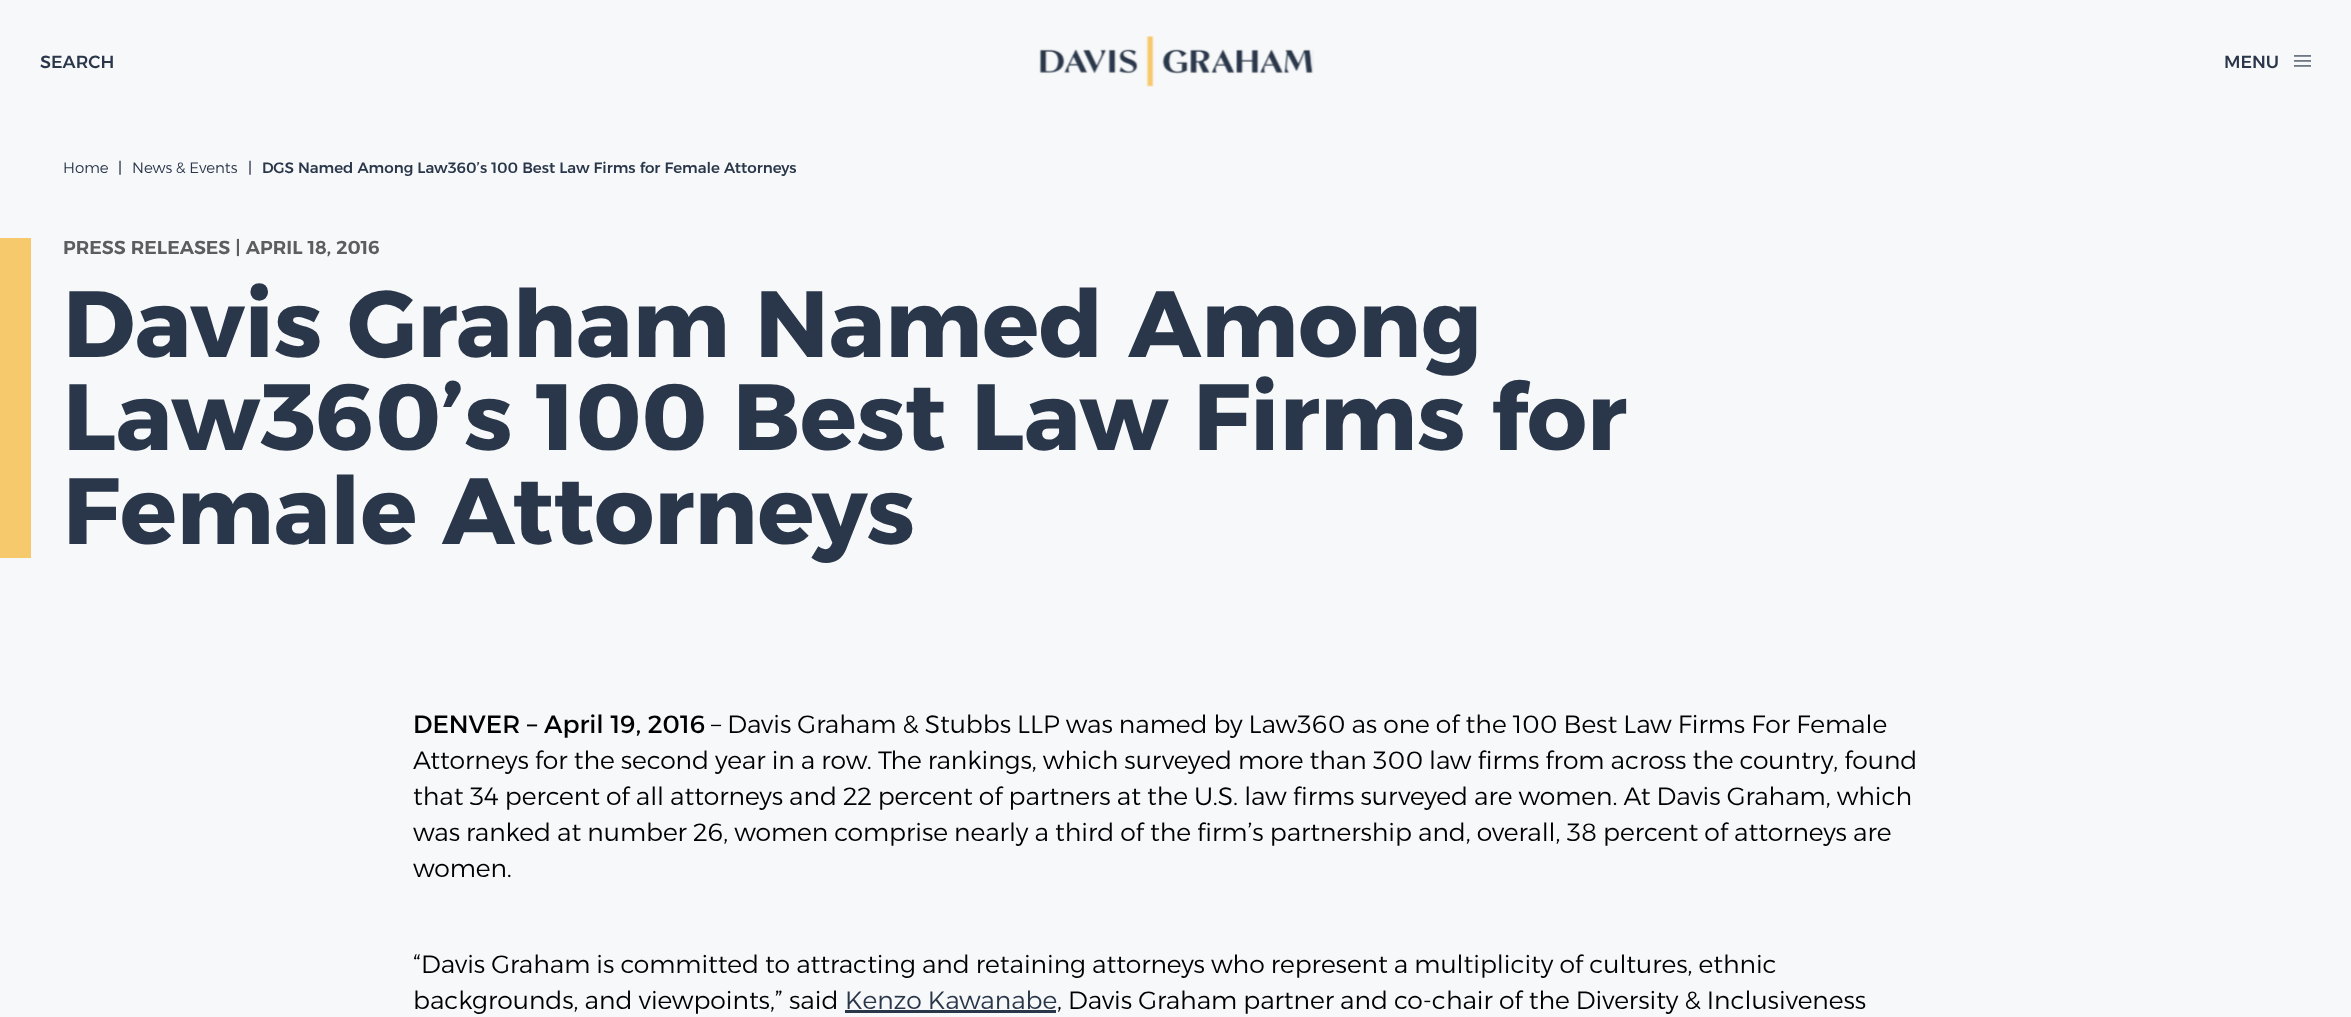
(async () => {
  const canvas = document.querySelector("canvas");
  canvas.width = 2351;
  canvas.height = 1017;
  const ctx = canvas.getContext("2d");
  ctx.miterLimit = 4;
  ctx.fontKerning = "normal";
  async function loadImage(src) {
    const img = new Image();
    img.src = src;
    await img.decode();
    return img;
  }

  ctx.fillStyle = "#f7f8f9";
  ctx.fillRect(0, 0, 2351, 1017);
  ctx.drawImage(await loadImage("img/1.png"), 1039, 35, 275, 52);
  ctx.drawImage(await loadImage("img/2.png"), 2294, 55, 17, 12);
  ctx.fillStyle = "#f6c96d";
  ctx.fillRect(0, 238, 31, 320);
  ctx.fillStyle = "#2a374a";
  ctx.fillRect(845, 1010, 211, 3);
  ctx.font = "500 17.5px Alexandria";
  ctx.fillText("SEARCH", 40, 68);
  ctx.fillText("MENU", 2224, 68);
  ctx.font = "300 15px Alexandria";
  ctx.fillText("Home", 63, 173);
  ctx.font = "15px Alexandria";
  ctx.fillText("|", 118, 173);
  ctx.font = "300 15px Alexandria";
  ctx.fillText("News & Events", 132, 173);
  ctx.font = "15px Alexandria";
  ctx.fillText("|", 248, 173);
  ctx.font = "500 15px Alexandria";
  ctx.fillText("DGS Named Among Law360’s 100 Best Law Firms for Female Attorneys", 262, 173);
  ctx.font = "600 18.75px Alexandria";
  ctx.fillStyle = "#5d5d5d";
  ctx.fillText("PRESS RELEASES | APRIL 18, 2016", 63, 254);
  ctx.font = "bold 93.75px Alexandria";
  ctx.fillStyle = "#2a374a";
  for (const [text, x, y] of [
    ["Davis Graham Named Among", 63, 357],
    ["Law360’s 100 Best Law Firms for", 63, 450],
    ["Female Attorneys", 63, 544],
  ]) {
    ctx.fillText(text, x, y);
  }
  ctx.font = "25px Alexandria";
  ctx.fillStyle = "#000000";
  ctx.fillText("DENVER – April 19, 2016", 413, 733);
  ctx.font = "300 25px Alexandria";
  for (const [text, x, y] of [
    ["– Davis Graham & Stubbs LLP was named by Law360 as one of the 100 Best Law Firms For Female", 711, 733],
    ["Attorneys for the second year in a row. The rankings, which surveyed more than 300 law firms from across the country, found", 413, 769],
    ["that 34 percent of all attorneys and 22 percent of partners at the U.S. law firms surveyed are women. At Davis Graham, which", 413, 805],
    ["was ranked at number 26, women comprise nearly a third of the firm’s partnership and, overall, 38 percent of attorneys are", 413, 841],
    ["women.", 413, 877],
    ["“Davis Graham is committed to attracting and retaining attorneys who represent a multiplicity of cultures, ethnic", 413, 973],
    ["backgrounds, and viewpoints,” said", 413, 1009],
  ]) {
    ctx.fillText(text, x, y);
  }
  ctx.fillStyle = "#2a374a";
  ctx.fillText("Kenzo Kawanabe", 845, 1009);
  ctx.fillStyle = "#000000";
  ctx.fillText(", Davis Graham partner and co-chair of the Diversity & Inclusiveness", 1057, 1009);
})();
